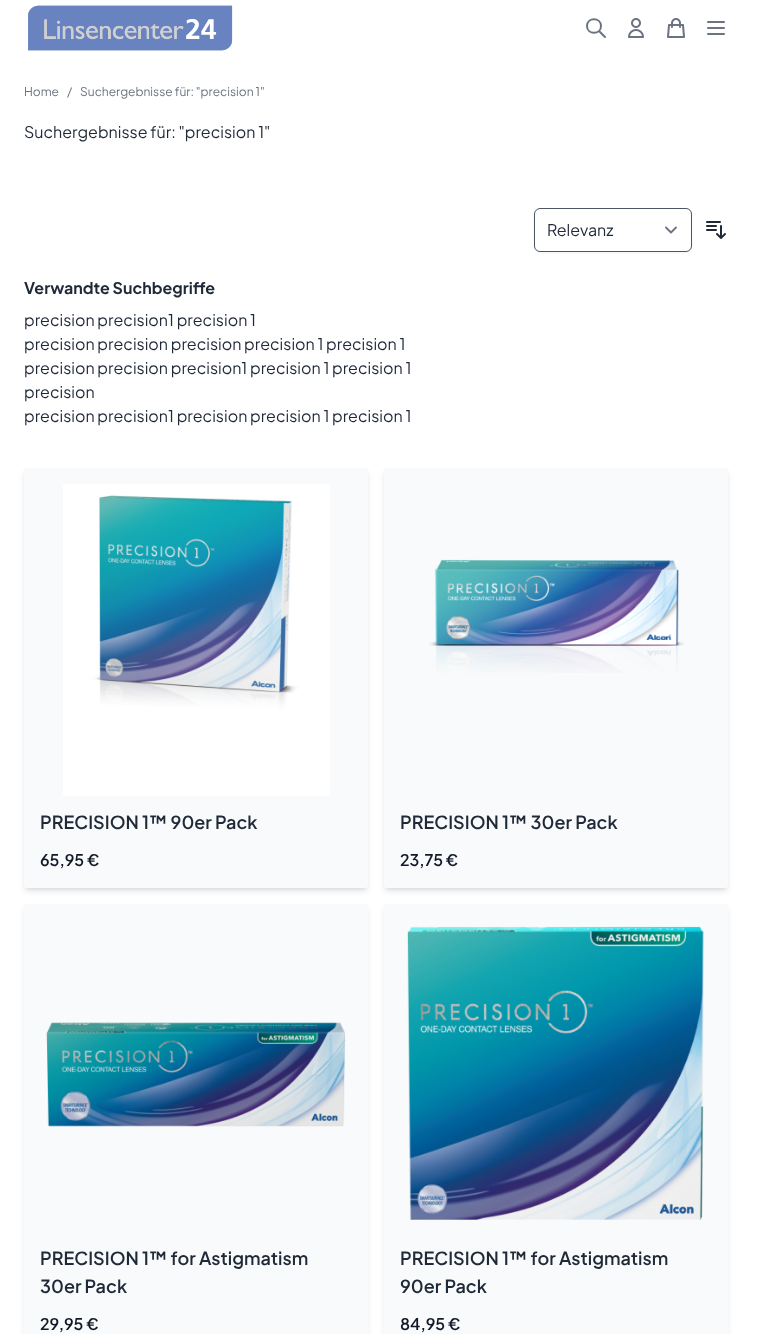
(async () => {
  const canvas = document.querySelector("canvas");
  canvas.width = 767;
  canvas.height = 1334;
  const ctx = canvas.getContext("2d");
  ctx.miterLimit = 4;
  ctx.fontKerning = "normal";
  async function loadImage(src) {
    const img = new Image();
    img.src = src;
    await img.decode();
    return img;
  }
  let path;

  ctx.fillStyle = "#ffffff";
  ctx.fillRect(0, 0, 767, 1334);
  ctx.drawImage(await loadImage("img/1.png"), 28, 5, 205, 46);
  path = new Path2D("M605 37L599 31M601 26C601 35 587 35 587 26C587 17 601 17 601 26Z");
  ctx.strokeStyle = "#6b7280";
  ctx.lineWidth = 2;
  ctx.lineCap = "round";
  ctx.lineJoin = "round";
  ctx.stroke(path);
  ctx.drawImage(await loadImage("img/2.png"), 628, 18, 16, 20);
  ctx.drawImage(await loadImage("img/3.png"), 667, 18, 18, 20);
  path = new Path2D("M708 22H724M708 28H724M708 34H724");
  ctx.stroke(path);
  ctx.fillStyle = "rgba(0, 0, 0, 0.05)";
  ctx.filter = "blur(1px)";
  ctx.beginPath();
  ctx.roundRect(534, 209, 158, 44, 6);
  ctx.fill();
  ctx.filter = "none";
  ctx.fillStyle = "#ffffff";
  ctx.beginPath();
  ctx.roundRect(534, 208, 158, 44, 6);
  ctx.fill();
  path = new Path2D("M666 227.5L671 232.5L676 227.5");
  ctx.lineWidth = 1.8;
  ctx.stroke(path);
  ctx.beginPath();
  ctx.roundRect(534.5, 208.5, 157, 43, 5.5);
  ctx.strokeStyle = "#4b5563";
  ctx.lineWidth = 1;
  ctx.lineJoin = "miter";
  ctx.stroke();
  ctx.drawImage(await loadImage("img/4.png"), 706, 221, 20, 18);
  ctx.fillStyle = "rgba(0, 0, 0, 0.1)";
  ctx.filter = "blur(2px)";
  ctx.beginPath();
  ctx.rect(26, 472, 340, 416);
  ctx.fill();
  ctx.filter = "none";
  ctx.filter = "blur(3px)";
  ctx.beginPath();
  ctx.roundRect(25, 473, 342, 418, 1);
  ctx.fill();
  ctx.filter = "none";
  ctx.fillStyle = "#f9fafb";
  ctx.beginPath();
  ctx.roundRect(24, 468, 344, 420, 2);
  ctx.fill();
  ctx.drawImage(await loadImage("img/5.png"), 63, 484, 267, 312);
  ctx.fillStyle = "rgba(0, 0, 0, 0.1)";
  ctx.filter = "blur(2px)";
  ctx.beginPath();
  ctx.rect(386, 472, 340, 416);
  ctx.fill();
  ctx.filter = "none";
  ctx.filter = "blur(3px)";
  ctx.beginPath();
  ctx.roundRect(385, 473, 342, 418, 1);
  ctx.fill();
  ctx.filter = "none";
  ctx.fillStyle = "#f9fafb";
  ctx.beginPath();
  ctx.roundRect(384, 468, 344, 420, 2);
  ctx.fill();
  ctx.drawImage(await loadImage("img/6.png"), 429, 559, 256, 114);
  ctx.fillStyle = "rgba(0, 0, 0, 0.1)";
  ctx.filter = "blur(3px)";
  ctx.beginPath();
  ctx.roundRect(25, 909, 342, 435, 1);
  ctx.fill();
  ctx.filter = "none";
  ctx.fillStyle = "#f9fafb";
  ctx.beginPath();
  ctx.roundRect(24, 904, 344, 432, 2);
  ctx.fill();
  ctx.drawImage(await loadImage("img/7.png"), 46, 1022, 300, 105);
  ctx.fillStyle = "rgba(0, 0, 0, 0.1)";
  ctx.filter = "blur(3px)";
  ctx.beginPath();
  ctx.roundRect(385, 909, 342, 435, 1);
  ctx.fill();
  ctx.filter = "none";
  ctx.fillStyle = "#f9fafb";
  ctx.beginPath();
  ctx.roundRect(384, 904, 344, 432, 2);
  ctx.fill();
  ctx.drawImage(await loadImage("img/8.png"), 407, 926, 297, 294);
  ctx.font = "12px Plus Jakarta Sans";
  ctx.fillStyle = "#6b7280";
  for (const [text, x, y] of [
    ["Home", 24, 96],
    ["/", 67, 96],
    ["Suchergebnisse für: \"precision 1\"", 80, 96],
  ]) {
    ctx.fillText(text, x, y);
  }
  ctx.font = "16px Plus Jakarta Sans";
  ctx.fillStyle = "#1f2937";
  ctx.fillText("Suchergebnisse für: \"precision 1\"", 24, 138);
  ctx.fillText("Relevanz", 547, 236);
  ctx.font = "bold 16px Plus Jakarta Sans";
  ctx.fillText("Verwandte Suchbegriffe", 24, 294);
  ctx.font = "16px Plus Jakarta Sans";
  for (const [text, x, y] of [
    ["precision precision1 precision 1", 24, 326],
    ["precision precision precision precision 1 precision 1", 24, 350],
    ["precision precision precision1 precision 1 precision 1", 24, 374],
    ["precision", 24, 398],
    ["precision precision1 precision precision 1 precision 1", 24, 422],
  ]) {
    ctx.fillText(text, x, y);
  }
  ctx.font = "600 18px Plus Jakarta Sans";
  ctx.fillText("PRECISION 1™ 90er Pack", 40, 829);
  ctx.font = "600 16px Plus Jakarta Sans";
  ctx.fillStyle = "#111827";
  ctx.fillText("65,95 €", 40, 866);
  ctx.font = "600 18px Plus Jakarta Sans";
  ctx.fillStyle = "#1f2937";
  ctx.fillText("PRECISION 1™ 30er Pack", 400, 829);
  ctx.font = "600 16px Plus Jakarta Sans";
  ctx.fillStyle = "#111827";
  ctx.fillText("23,75 €", 400, 866);
  ctx.font = "600 18px Plus Jakarta Sans";
  ctx.fillStyle = "#1f2937";
  ctx.fillText("PRECISION 1™ for Astigmatism", 40, 1265);
  ctx.fillText("30er Pack", 40, 1293);
  ctx.font = "600 16px Plus Jakarta Sans";
  ctx.fillStyle = "#111827";
  ctx.fillText("29,95 €", 40, 1330);
  ctx.font = "600 18px Plus Jakarta Sans";
  ctx.fillStyle = "#1f2937";
  ctx.fillText("PRECISION 1™ for Astigmatism", 400, 1265);
  ctx.fillText("90er Pack", 400, 1293);
  ctx.font = "600 16px Plus Jakarta Sans";
  ctx.fillStyle = "#111827";
  ctx.fillText("84,95 €", 400, 1330);
})();
